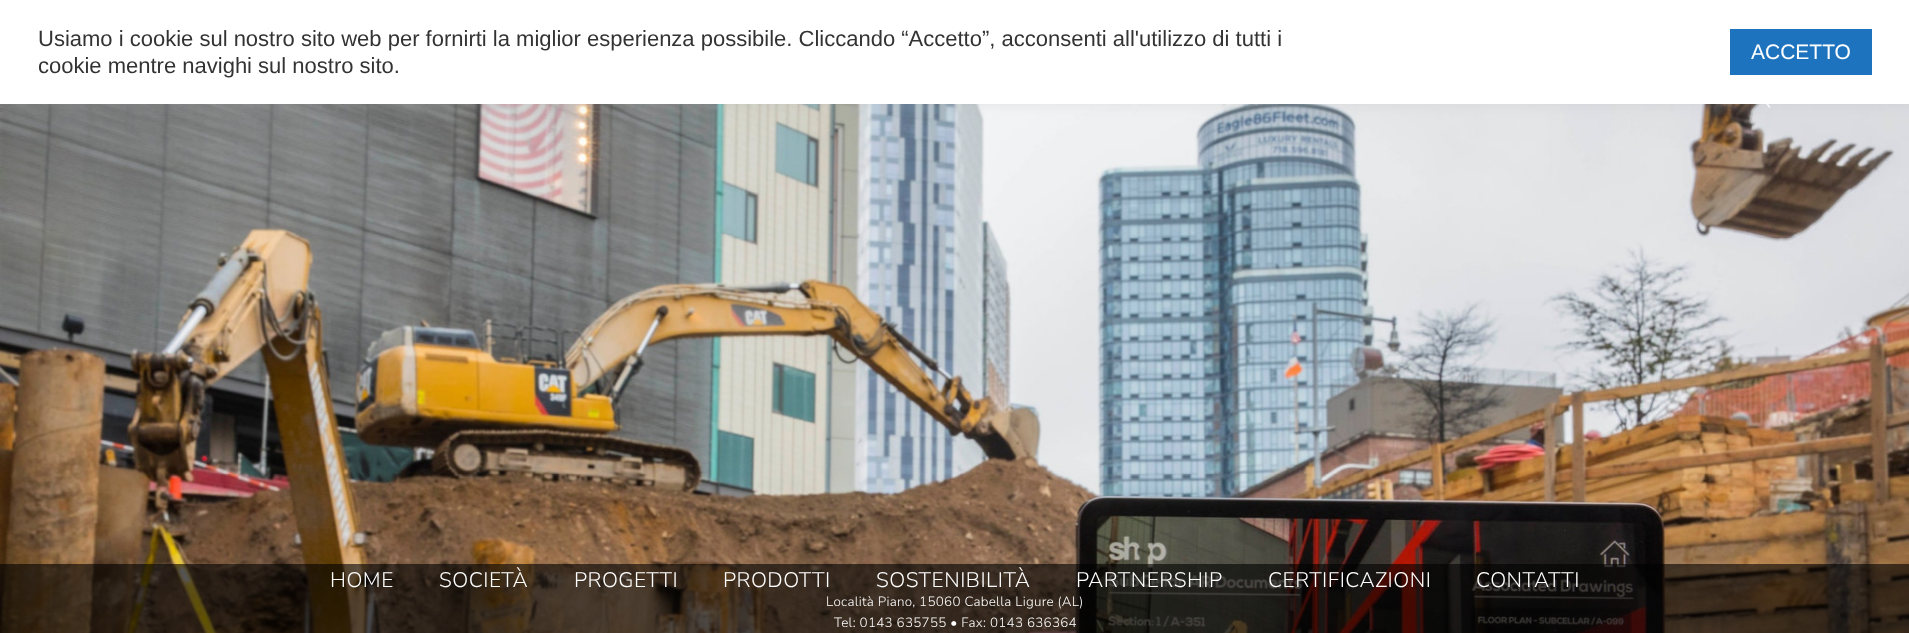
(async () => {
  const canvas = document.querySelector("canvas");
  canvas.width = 1909;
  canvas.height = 633;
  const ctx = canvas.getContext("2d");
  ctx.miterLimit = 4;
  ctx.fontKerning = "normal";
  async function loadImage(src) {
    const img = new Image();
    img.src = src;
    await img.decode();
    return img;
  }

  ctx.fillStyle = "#ffffff";
  ctx.fillRect(0, 0, 1909, 633);
  ctx.drawImage(await loadImage("img/1.png"), 0, 104, 1909, 529);
  ctx.drawImage(await loadImage("img/2.png"), 1766, 104, 5, 4);
  ctx.fillStyle = "rgba(172, 171, 171, 0.3)";
  ctx.filter = "blur(7.5px)";
  ctx.beginPath();
  ctx.rect(0, -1, 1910, 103);
  ctx.fill();
  ctx.filter = "none";
  for (const [x, y, w, h, color] of [
    [0, 0, 1909, 104, "#ffffff"],
    [1730, 29, 142, 46, "#1e73be"],
    [0, 564, 1909, 69, "rgba(2, 1, 1, 0.61)"],
  ]) {
    ctx.fillStyle = color;
    ctx.fillRect(x, y, w, h);
  }
  ctx.font = "22px Liberation Sans";
  ctx.fillStyle = "#333333";
  ctx.fillText("Usiamo i cookie sul nostro sito web per fornirti la miglior esperienza possibile. Cliccando “Accetto”, acconsenti all'utilizzo di tutti i", 38, 46);
  ctx.fillText("cookie mentre navighi sul nostro sito.", 38, 73);
  ctx.font = "21px Liberation Sans";
  ctx.fillStyle = "#ffffff";
  ctx.fillText("ACCETTO", 1751, 59);
  ctx.letterSpacing = "0.5px";
  ctx.font = "300 21px Nunito Sans";
  for (const [text, x, y] of [
    ["HOME", 330, 587],
    ["SOCIETÀ", 439, 587],
    ["PROGETTI", 574, 587],
    ["PRODOTTI", 723, 587],
    ["SOSTENIBILITÀ", 876, 587],
    ["PARTNERSHIP", 1076, 587],
    ["CERTIFICAZIONI", 1268, 587],
    ["CONTATTI", 1476, 587],
  ]) {
    ctx.fillText(text, x, y);
  }
  ctx.letterSpacing = "0.3px";
  ctx.font = "300 13.4px Nunito Sans";
  ctx.fillText("Località Piano, 15060 Cabella Ligure (AL)", 826, 606);
  ctx.fillText("Tel: 0143 635755 • Fax: 0143 636364", 834, 627);
})();
